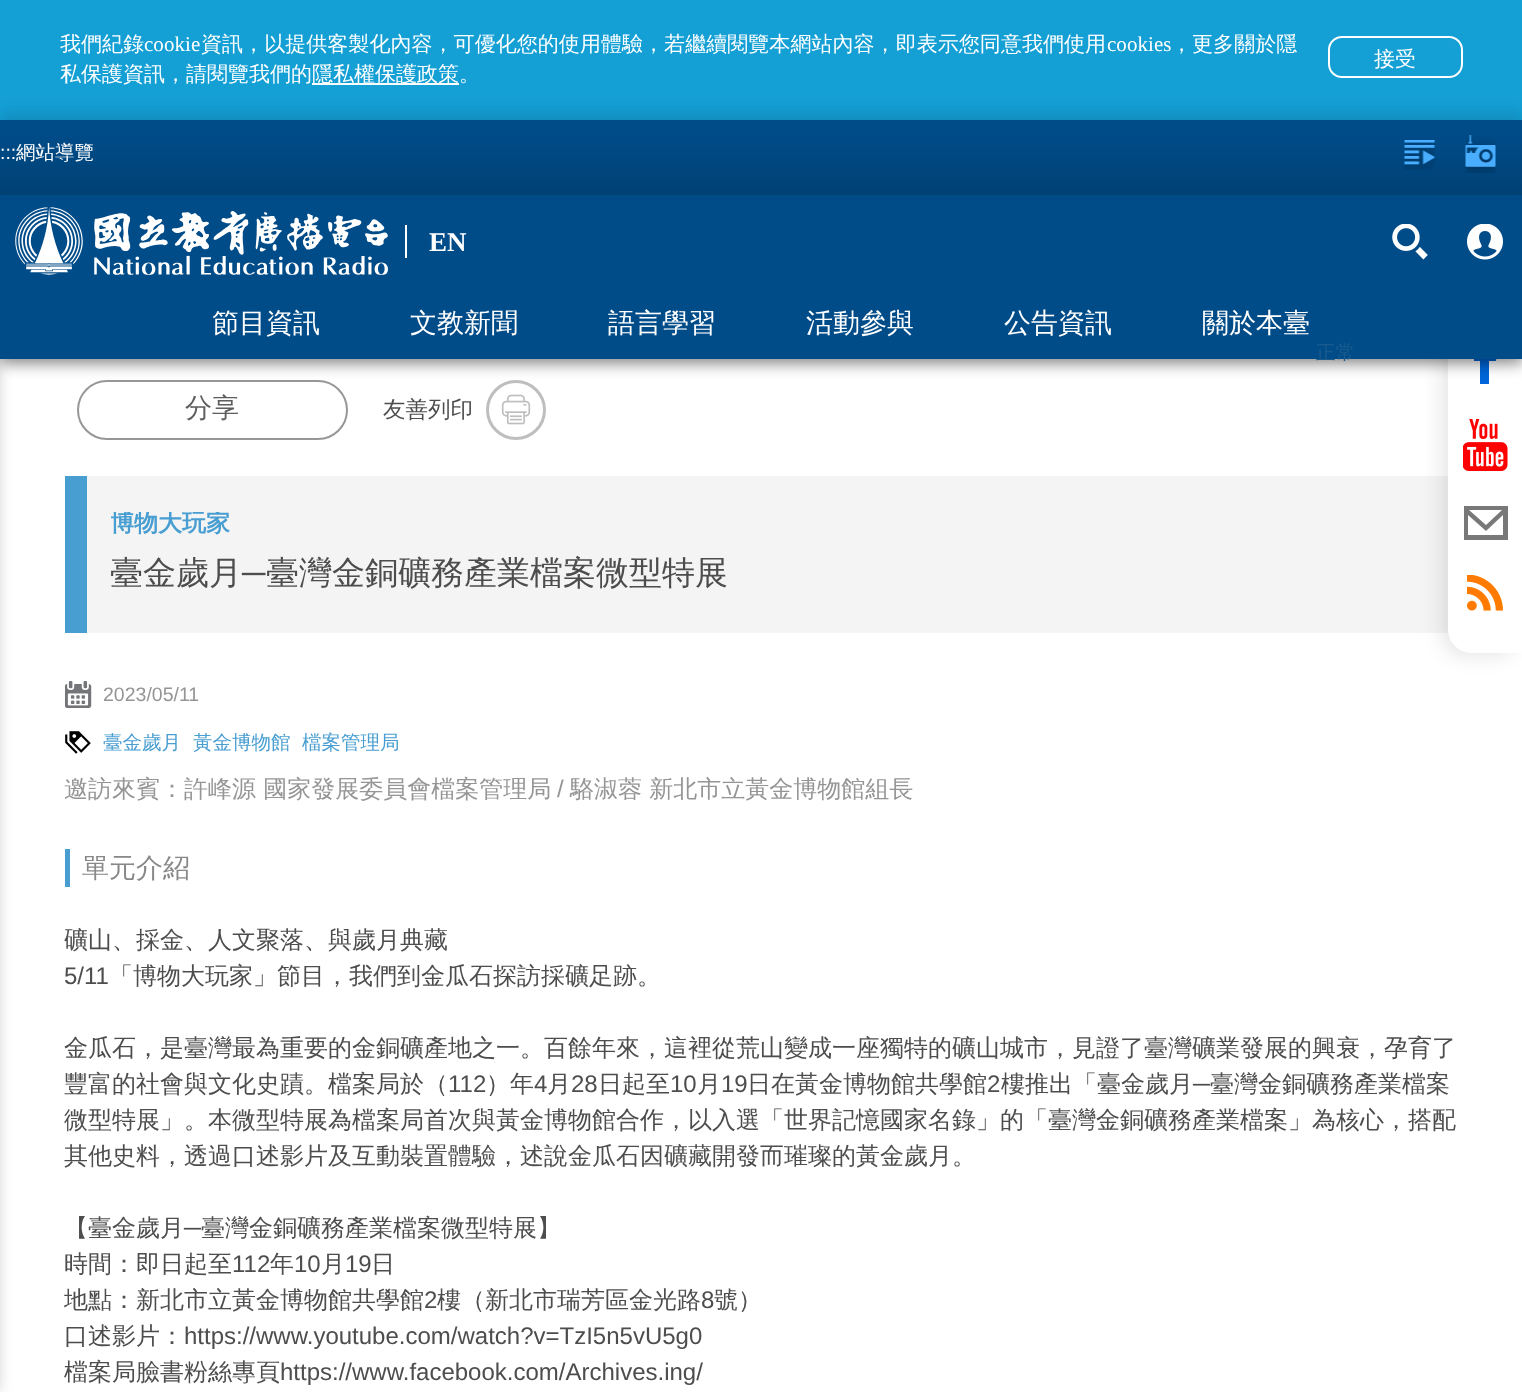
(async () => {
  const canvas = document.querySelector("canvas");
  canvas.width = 1522;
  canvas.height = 1392;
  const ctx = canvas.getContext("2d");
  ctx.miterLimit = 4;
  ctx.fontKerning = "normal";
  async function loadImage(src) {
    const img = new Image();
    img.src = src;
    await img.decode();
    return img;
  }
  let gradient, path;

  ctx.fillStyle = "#ffffff";
  ctx.fillRect(0, 0, 1522, 1392);
  ctx.fillStyle = "rgba(0, 0, 0, 0.4)";
  ctx.filter = "blur(9px)";
  ctx.beginPath();
  ctx.rect(-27, 0, 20, 1392);
  ctx.fill();
  ctx.filter = "none";
  ctx.beginPath();
  ctx.roundRect(78, 381, 269, 58, 29);
  ctx.strokeStyle = "#979797";
  ctx.lineWidth = 2;
  ctx.stroke();
  ctx.drawImage(await loadImage("img/6.png"), 501, 394, 30, 31);
  ctx.beginPath();
  ctx.arc(516, 410, 28.5, 0, Math.PI * 2);
  ctx.strokeStyle = "#bebebe";
  ctx.lineWidth = 3;
  ctx.stroke();
  ctx.fillStyle = "#f4f4f4";
  ctx.fillRect(87, 476, 1362, 157);
  ctx.fillStyle = "rgba(0, 0, 0, 0.1)";
  ctx.filter = "blur(10px)";
  ctx.beginPath();
  ctx.roundRect(1442, 303, 75, 353, 24);
  ctx.fill();
  ctx.filter = "none";
  ctx.fillStyle = "#ffffff";
  path = new Path2D("M1472 300H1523V653H1472C1458.5 653 1448 642.5 1448 629V324C1448 310.5 1458.5 300 1472 300Z");
  ctx.fill(path);
  ctx.fillStyle = "#0066d9";
  path = new Path2D("M1480 353H1474V361H1480V384H1489V361H1496L1497 353H1489C1489 345 1489 346 1497 346V338C1482 338 1480 337 1480 353Z");
  ctx.fill(path, "evenodd");
  ctx.fillStyle = "rgba(0, 0, 0, 0.5)";
  ctx.filter = "blur(7.5px)";
  ctx.beginPath();
  ctx.rect(0, 5, 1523, 358);
  ctx.fill();
  ctx.filter = "none";
  ctx.fillStyle = "#149fd5";
  ctx.fillRect(0, 0, 1522, 120);
  ctx.fillStyle = "#ffffff";
  ctx.fillRect(312, 83, 147, 2);
  ctx.beginPath();
  ctx.roundRect(1329, 37, 133, 40, 13);
  ctx.strokeStyle = "#ffffff";
  ctx.lineWidth = 2;
  ctx.stroke();
  ctx.fillStyle = "#004c89";
  ctx.fillRect(0, 195, 1522, 164);
  ctx.drawImage(await loadImage("img/3.png"), 15, 207, 373, 68);
  ctx.fillStyle = "rgba(0, 0, 0, 0.13)";
  ctx.filter = "blur(7.5px)";
  ctx.beginPath();
  ctx.rect(0, 114, 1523, 75);
  ctx.fill();
  ctx.filter = "none";
  gradient = ctx.createLinearGradient(761, 120, 761, 195);
  gradient.addColorStop(0.17, "#004c89");
  gradient.addColorStop(1, "#004174");
  ctx.fillStyle = gradient;
  ctx.fillRect(0, 120, 1522, 75);
  ctx.drawImage(await loadImage("img/1.png"), 1404, 140, 31, 30);
  ctx.drawImage(await loadImage("img/2.png"), 1465, 135, 31, 38);
  ctx.fillStyle = "#ffffff";
  ctx.fillRect(405, 225, 2, 33);
  ctx.drawImage(await loadImage("img/4.png"), 1392, 224, 36, 36);
  ctx.drawImage(await loadImage("img/5.png"), 1467, 224, 36, 36);
  ctx.fillStyle = "#489dd1";
  ctx.fillRect(65, 476, 22, 157);
  ctx.drawImage(await loadImage("img/7.png"), 65, 681, 27, 27);
  ctx.drawImage(await loadImage("img/8.png"), 65, 731, 26, 23);
  ctx.fillRect(65, 849, 5, 38);
  ctx.drawImage(await loadImage("img/9.png"), 1463, 419, 45, 52);
  ctx.fillStyle = "#787878";
  path = new Path2D("M1468 515L1486 531L1503 515V535H1468ZM1502 510L1486 525L1469 510ZM1464 540H1508V506H1464Z");
  ctx.fill(path, "evenodd");
  ctx.drawImage(await loadImage("img/10.png"), 1467, 575, 36, 36);
  ctx.letterSpacing = "0.05px";
  ctx.font = "500 21px WenQuanYi Zen Hei";
  ctx.fillStyle = "#ffffff";
  ctx.fillText("我們紀錄", 60, 51);
  ctx.font = "21px Liberation Serif";
  ctx.fillText("cookie", 144, 51);
  ctx.font = "500 21px WenQuanYi Zen Hei";
  ctx.fillText("資訊，以提供客製化內容，可優化您的使用體驗，若繼續閱覽本網站內容，即表示您同意我們使用", 201, 51);
  ctx.font = "21px Liberation Serif";
  ctx.fillText("cookies", 1107, 51);
  ctx.font = "500 21px WenQuanYi Zen Hei";
  ctx.fillText("，更多關於隱", 1171, 51);
  ctx.letterSpacing = "0px";
  for (const [text, x, y] of [
    ["私保護資訊，請閱覽我們的", 60, 81],
    ["隱私權保護政策。", 312, 81],
    ["接受", 1374, 66],
  ]) {
    ctx.fillText(text, x, y);
  }
  ctx.font = "19.5px Liberation Sans";
  ctx.fillText(":::", 0, 159);
  ctx.font = "500 19.5px WenQuanYi Zen Hei";
  ctx.fillText("網站導覽", 16, 159);
  ctx.font = "bold 27px Liberation Serif";
  ctx.fillText("EN", 429, 251);
  ctx.font = "500 27px WenQuanYi Zen Hei";
  for (const [text, x, y] of [
    ["節目資訊", 212, 332],
    ["文教新聞", 410, 332],
    ["語言學習", 608, 332],
    ["活動參與", 806, 332],
    ["公告資訊", 1004, 332],
    ["關於本臺", 1202, 332],
  ]) {
    ctx.fillText(text, x, y);
  }
  ctx.font = "500 19.5px WenQuanYi Zen Hei";
  ctx.fillStyle = "#1a5b8e";
  ctx.fillText("正常", 1316, 359);
  ctx.font = "500 27px WenQuanYi Zen Hei";
  ctx.fillStyle = "#5e5e5e";
  ctx.fillText("分享", 185, 417);
  ctx.font = "500 22.5px WenQuanYi Zen Hei";
  ctx.fillStyle = "#4d4d4d";
  ctx.fillText("友善列印", 383, 417);
  ctx.save();
  ctx.beginPath();
  ctx.rect(111, 512, 1325, 24);
  ctx.clip();
  ctx.font = "bold 24px WenQuanYi Zen Hei";
  ctx.fillStyle = "#489dd1";
  ctx.fillText("博物大玩家", 110, 531);
  ctx.restore();
  ctx.font = "500 33px WenQuanYi Zen Hei";
  ctx.fillText("臺金歲月", 110, 584);
  ctx.font = "33px Liberation Sans";
  ctx.fillText("─", 242, 584);
  ctx.font = "500 33px WenQuanYi Zen Hei";
  ctx.fillText("臺灣金銅礦務產業檔案微型特展", 266, 584);
  ctx.font = "19.5px Liberation Sans";
  ctx.fillStyle = "#959595";
  ctx.fillText("2023/05/11", 103, 701);
  ctx.font = "500 19.5px WenQuanYi Zen Hei";
  ctx.fillStyle = "#489dd1";
  for (const [text, x, y] of [
    ["臺金歲月", 103, 749],
    ["黃金博物館", 193, 749],
    ["檔案管理局", 302, 749],
  ]) {
    ctx.fillText(text, x, y);
  }
  ctx.font = "500 24px WenQuanYi Zen Hei";
  ctx.fillStyle = "#959595";
  ctx.fillText("邀訪來賓：許峰源 國家發展委員會檔案管理局", 64, 797);
  ctx.font = "24px Liberation Sans";
  ctx.fillText("/", 557, 797);
  ctx.font = "500 24px WenQuanYi Zen Hei";
  ctx.fillText("駱淑蓉 新北市立黃金博物館組長", 570, 797);
  ctx.font = "500 27px WenQuanYi Zen Hei";
  ctx.fillStyle = "#888888";
  ctx.fillText("單元介紹", 82, 877);
  ctx.font = "500 24px WenQuanYi Zen Hei";
  ctx.fillStyle = "#4d4d4d";
  ctx.fillText("礦山、採金、人文聚落、與歲月典藏", 64, 948);
  ctx.font = "24px Liberation Sans";
  ctx.fillText("5/11", 64, 984);
  ctx.font = "500 24px WenQuanYi Zen Hei";
  for (const [text, x, y] of [
    ["「博物大玩家」節目，我們到金瓜石探訪採礦足跡。", 109, 984],
    ["金瓜石，是臺灣最為重要的金銅礦產地之一。百餘年來，這裡從荒山變成一座獨特的礦山城市，見證了臺灣礦業發展的興衰，孕育了", 64, 1056],
    ["豐富的社會與文化史蹟。檔案局於（", 64, 1092],
  ]) {
    ctx.fillText(text, x, y);
  }
  ctx.font = "24px Liberation Sans";
  ctx.fillText("112", 448, 1092);
  ctx.font = "500 24px WenQuanYi Zen Hei";
  ctx.fillText("）年", 486, 1092);
  ctx.font = "24px Liberation Sans";
  ctx.fillText("4", 534, 1092);
  ctx.font = "500 24px WenQuanYi Zen Hei";
  ctx.fillText("月", 547, 1092);
  ctx.font = "24px Liberation Sans";
  ctx.fillText("28", 571, 1092);
  ctx.font = "500 24px WenQuanYi Zen Hei";
  ctx.fillText("日起至", 598, 1092);
  ctx.font = "24px Liberation Sans";
  ctx.fillText("10", 670, 1092);
  ctx.font = "500 24px WenQuanYi Zen Hei";
  ctx.fillText("月", 697, 1092);
  ctx.font = "24px Liberation Sans";
  ctx.fillText("19", 721, 1092);
  ctx.font = "500 24px WenQuanYi Zen Hei";
  ctx.fillText("日在黃金博物館共學館", 747, 1092);
  ctx.font = "24px Liberation Sans";
  ctx.fillText("2", 987, 1092);
  ctx.font = "500 24px WenQuanYi Zen Hei";
  ctx.fillText("樓推出「臺金歲月", 1001, 1092);
  ctx.font = "24px Liberation Sans";
  ctx.fillText("─", 1193, 1092);
  ctx.font = "500 24px WenQuanYi Zen Hei";
  for (const [text, x, y] of [
    ["臺灣金銅礦務產業檔案", 1210, 1092],
    ["微型特展」。本微型特展為檔案局首次與黃金博物館合作，以入選「世界記憶國家名錄」的「臺灣金銅礦務產業檔案」為核心，搭配", 64, 1128],
    ["其他史料，透過口述影片及互動裝置體驗，述說金瓜石因礦藏開發而璀璨的黃金歲月。", 64, 1164],
    ["【臺金歲月", 64, 1236],
  ]) {
    ctx.fillText(text, x, y);
  }
  ctx.font = "24px Liberation Sans";
  ctx.fillText("─", 184, 1236);
  ctx.font = "500 24px WenQuanYi Zen Hei";
  ctx.fillText("臺灣金銅礦務產業檔案微型特展】", 201, 1236);
  ctx.fillText("時間：即日起至", 64, 1272);
  ctx.font = "24px Liberation Sans";
  ctx.fillText("112", 232, 1272);
  ctx.font = "500 24px WenQuanYi Zen Hei";
  ctx.fillText("年", 270, 1272);
  ctx.font = "24px Liberation Sans";
  ctx.fillText("10", 294, 1272);
  ctx.font = "500 24px WenQuanYi Zen Hei";
  ctx.fillText("月", 321, 1272);
  ctx.font = "24px Liberation Sans";
  ctx.fillText("19", 345, 1272);
  ctx.font = "500 24px WenQuanYi Zen Hei";
  ctx.fillText("日", 371, 1272);
  ctx.fillText("地點：新北市立黃金博物館共學館", 64, 1308);
  ctx.font = "24px Liberation Sans";
  ctx.fillText("2", 424, 1308);
  ctx.font = "500 24px WenQuanYi Zen Hei";
  ctx.fillText("樓（新北市瑞芳區金光路", 437, 1308);
  ctx.font = "24px Liberation Sans";
  ctx.fillText("8", 701, 1308);
  ctx.font = "500 24px WenQuanYi Zen Hei";
  ctx.fillText("號）", 714, 1308);
  ctx.fillText("口述影片：", 64, 1344);
  ctx.font = "24px Liberation Sans";
  ctx.fillText("https://www.youtube.com/watch?v=TzI5n5vU5g0", 184, 1344);
  ctx.font = "500 24px WenQuanYi Zen Hei";
  ctx.fillText("檔案局臉書粉絲專頁", 64, 1380);
  ctx.font = "24px Liberation Sans";
  ctx.fillText("https://www.facebook.com/Archives.ing/", 280, 1380);
})();
